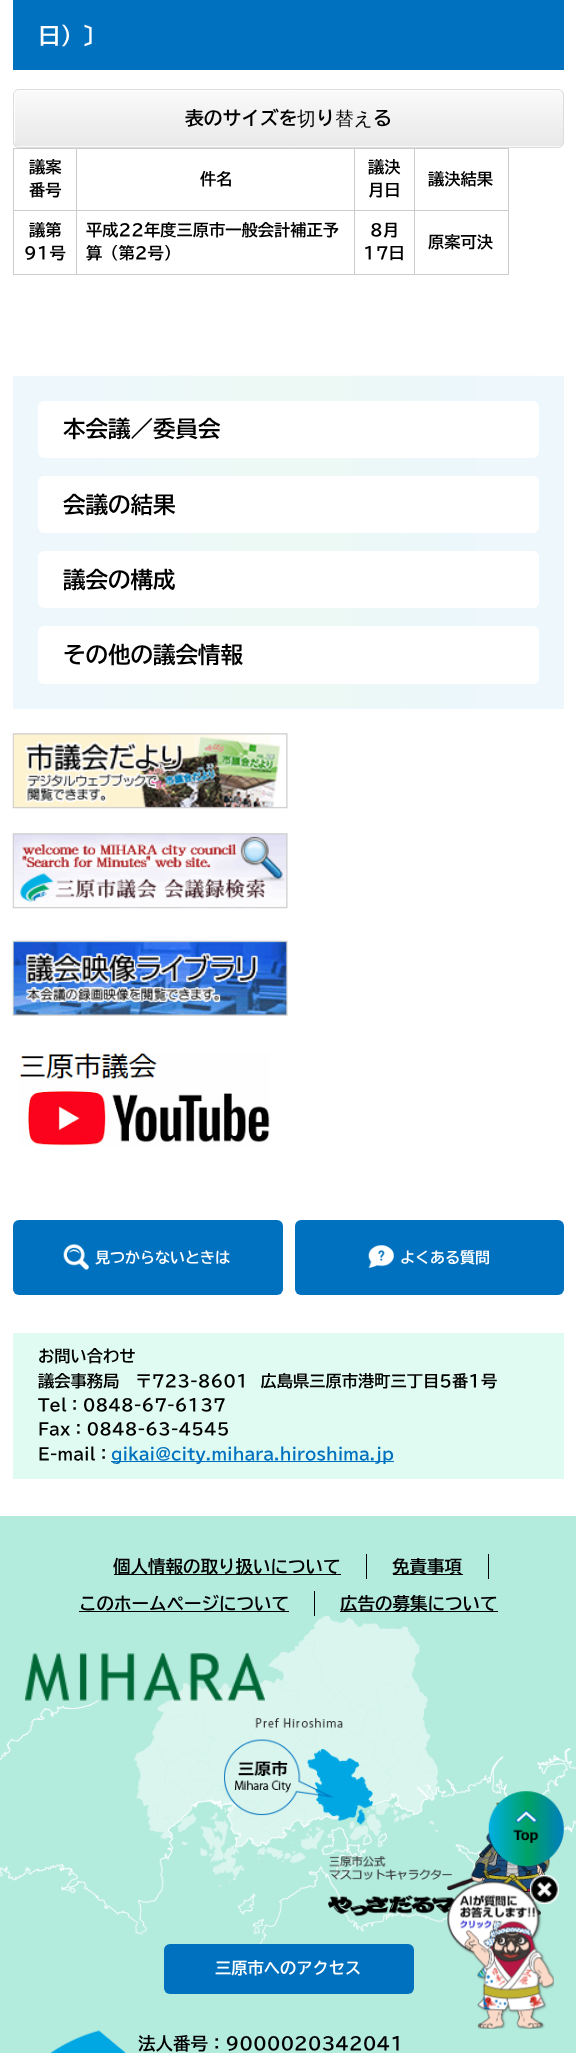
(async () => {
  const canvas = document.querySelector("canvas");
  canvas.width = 576;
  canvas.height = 2053;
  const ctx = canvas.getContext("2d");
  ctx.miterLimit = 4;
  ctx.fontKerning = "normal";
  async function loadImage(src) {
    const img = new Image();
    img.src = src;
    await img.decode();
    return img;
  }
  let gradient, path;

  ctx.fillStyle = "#ffffff";
  ctx.fillRect(0, 0, 576, 2053);
  ctx.fillStyle = "#0071be";
  ctx.fillRect(13, 0, 551, 70);
  ctx.fillStyle = "#f9f9f9";
  ctx.beginPath();
  ctx.roundRect(13, 89, 551, 59, 6);
  ctx.fill();
  ctx.save();
  ctx.beginPath();
  ctx.roundRect(13, 89, 551, 59, 6);
  ctx.clip();
  gradient = ctx.createLinearGradient(14, 90, 14, 146);
  gradient.addColorStop(0.05, "#f9f9f9");
  gradient.addColorStop(1, "#e9e9e9");
  ctx.fillStyle = gradient;
  ctx.fillRect(13, 90, 551, 56);
  ctx.restore();
  ctx.fillStyle = "#ffffff";
  path = new Path2D("M20 91H559L562 92C561 91 559 90 558 90H19C16 90 14 92 14 95V141C14 142 15 144 15 145V142V96C15 93 17 91 20 91Z");
  ctx.fill(path);
  ctx.beginPath();
  ctx.roundRect(13.5, 89.5, 550, 58, 5.5);
  ctx.strokeStyle = "#dcdcdc";
  ctx.stroke();
  for (const [x, y, w, h, color] of [
    [13, 148, 496, 1, "#cccccc"],
    [508, 148, 1, 127, "#cccccc"],
    [13, 274, 496, 1, "#cccccc"],
    [13, 148, 1, 127, "#cccccc"],
    [414, 210, 95, 1, "#cccccc"],
    [414, 210, 1, 65, "#cccccc"],
    [354, 210, 61, 1, "#cccccc"],
    [354, 210, 1, 65, "#cccccc"],
    [76, 210, 279, 1, "#cccccc"],
    [76, 210, 1, 65, "#cccccc"],
    [13, 210, 65, 1, "#cccccc"],
    [76, 148, 1, 63, "#cccccc"],
    [354, 148, 1, 63, "#cccccc"],
    [414, 148, 1, 63, "#cccccc"],
    [13, 376, 551, 333, "#edf7fc"],
  ]) {
    ctx.fillStyle = color;
    ctx.fillRect(x, y, w, h);
  }
  ctx.drawImage(await loadImage("img/1.png"), 39, 375, 499, 333);
  ctx.fillStyle = "#ffffff";
  ctx.beginPath();
  ctx.roundRect(38, 401, 501, 57, 6);
  ctx.fill();
  ctx.beginPath();
  ctx.roundRect(38, 476, 501, 57, 6);
  ctx.fill();
  ctx.beginPath();
  ctx.roundRect(38, 551, 501, 57, 6);
  ctx.fill();
  ctx.beginPath();
  ctx.roundRect(38, 626, 501, 58, 6);
  ctx.fill();
  ctx.drawImage(await loadImage("img/2.png"), 12, 733, 276, 76);
  ctx.drawImage(await loadImage("img/3.png"), 12, 833, 276, 76);
  ctx.drawImage(await loadImage("img/4.png"), 12, 940, 276, 76);
  ctx.drawImage(await loadImage("img/5.png"), 19, 1053, 251, 93);
  ctx.fillStyle = "#0071be";
  ctx.beginPath();
  ctx.roundRect(13, 1220, 270, 75, 6);
  ctx.fill();
  ctx.drawImage(await loadImage("img/6.png"), 63, 1244, 26, 26);
  ctx.beginPath();
  ctx.roundRect(295, 1220, 269, 75, 6);
  ctx.fill();
  ctx.drawImage(await loadImage("img/7.png"), 368, 1245, 26, 23);
  for (const [x, y, w, h, color] of [
    [13, 1333, 551, 146, "#dffbf2"],
    [111, 1461, 283, 1, "#0071be"],
    [0, 1516, 576, 537, "#b3ebdc"],
  ]) {
    ctx.fillStyle = color;
    ctx.fillRect(x, y, w, h);
  }
  ctx.drawImage(await loadImage("img/8.png"), 0, 1615, 576, 329);
  for (const [x, y, w, h, color] of [
    [366, 1554, 1, 25, "#000000"],
    [114, 1574, 227, 1, "#000000"],
    [488, 1554, 1, 25, "#000000"],
    [393, 1574, 70, 1, "#000000"],
    [314, 1591, 1, 25, "#000000"],
    [79, 1611, 210, 1, "#000000"],
    [340, 1611, 158, 1, "#000000"],
  ]) {
    ctx.fillStyle = color;
    ctx.fillRect(x, y, w, h);
  }
  ctx.drawImage(await loadImage("img/11.png"), 328, 1802, 222, 115);
  ctx.drawImage(await loadImage("img/9.png"), 488, 1791, 76, 76);
  ctx.drawImage(await loadImage("img/10.png"), 25, 1653, 240, 48);
  ctx.fillStyle = "#0071be";
  ctx.beginPath();
  ctx.roundRect(164, 1944, 250, 50, 6);
  ctx.fill();
  ctx.drawImage(await loadImage("img/12.png"), 50, 2030, 75, 23);
  ctx.drawImage(await loadImage("img/14.png"), 447, 1881, 107, 148);
  ctx.drawImage(await loadImage("img/13.png"), 530, 1875, 29, 29);
  ctx.font = "600 22.5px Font";
  ctx.fillStyle = "#ffffff";
  ctx.fillText("日）〕", 38, 44);
  ctx.font = "600 18.75px Font";
  ctx.fillStyle = "#000000";
  ctx.fillText("表のサイズを", 185, 125);
  ctx.font = "500 18.75px WenQuanYi Zen Hei";
  ctx.fillText("切", 297, 125);
  ctx.font = "600 18.75px Font";
  ctx.fillText("り", 316, 125);
  ctx.font = "500 18.75px WenQuanYi Zen Hei";
  ctx.fillText("替え", 335, 125);
  ctx.font = "600 18.75px Font";
  ctx.fillText("る", 373, 125);
  ctx.font = "600 16.25px Font";
  for (const [text, x, y] of [
    ["議案", 29, 173],
    ["番号", 29, 196],
    ["件名", 200, 185],
    ["議決", 368, 173],
    ["月日", 368, 196],
    ["議決結果", 428, 185],
    ["議第", 29, 236],
    ["91号", 24, 259],
    ["平成22年度三原市一般会計補正予", 86, 236],
    ["算（第2号）", 86, 259],
    ["8月", 370, 236],
    ["17日", 363, 259],
    ["原案可決", 428, 248],
  ]) {
    ctx.fillText(text, x, y);
  }
  ctx.font = "600 22.5px Font";
  for (const [text, x, y] of [
    ["本会議／委員会", 63, 437],
    ["会議の結果", 63, 513],
    ["議会の構成", 63, 588],
    ["その他の議会情報", 63, 663],
  ]) {
    ctx.fillText(text, x, y);
  }
  ctx.font = "600 15px Font";
  ctx.fillStyle = "#ffffff";
  ctx.fillText("見つからないときは", 95, 1263);
  ctx.fillText("よくある質問", 400, 1263);
  ctx.font = "600 16.25px Font";
  ctx.fillStyle = "#000000";
  for (const [text, x, y] of [
    ["お問い合わせ", 38, 1362],
    ["議会事務局　〒723-8601  広島県三原市港町三丁目5番1号", 38, 1387],
    ["Tel：0848-67-6137", 38, 1411],
    ["Fax：0848-63-4545", 38, 1435],
    ["E-mail：", 38, 1460],
  ]) {
    ctx.fillText(text, x, y);
  }
  ctx.fillStyle = "#0071be";
  ctx.fillText("gikai@city.mihara.hiroshima.jp", 111, 1460);
  ctx.font = "600 17.5px Font";
  ctx.fillStyle = "#000000";
  for (const [text, x, y] of [
    ["個人情報の取り扱いについて", 113, 1573],
    ["免責事項", 392, 1573],
    ["このホームページについて", 79, 1610],
    ["広告の募集について", 340, 1610],
  ]) {
    ctx.fillText(text, x, y);
  }
  ctx.font = "600 16.25px Font";
  ctx.fillStyle = "#ffffff";
  ctx.fillText("三原市へのアクセス", 215, 1974);
  ctx.font = "600 17.5px Font";
  ctx.fillStyle = "#000000";
  ctx.fillText("法人番号：9000020342041", 138, 2050);
})();
